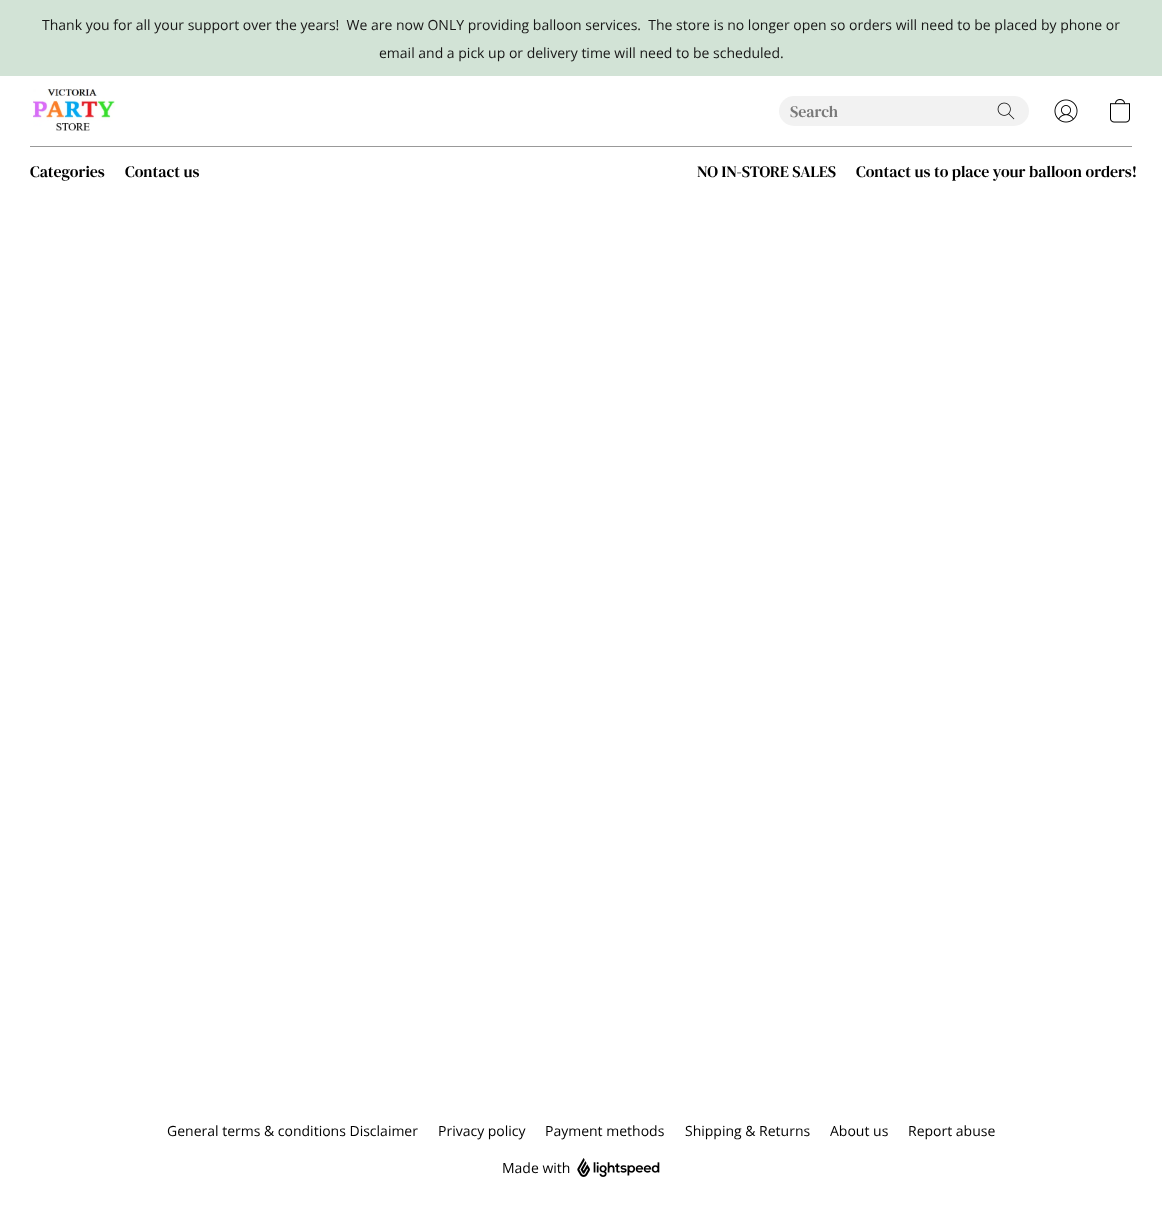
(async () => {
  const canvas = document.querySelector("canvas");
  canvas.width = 1162;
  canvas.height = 1211;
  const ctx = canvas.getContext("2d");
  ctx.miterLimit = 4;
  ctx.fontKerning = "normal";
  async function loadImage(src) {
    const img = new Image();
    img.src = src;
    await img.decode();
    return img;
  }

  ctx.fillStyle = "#ffffff";
  ctx.fillRect(0, 0, 1162, 1211);
  ctx.fillStyle = "#d2e3d6";
  ctx.fillRect(0, 0, 1162, 76);
  ctx.drawImage(await loadImage("img/1.png"), 33, 89, 82, 42);
  ctx.fillStyle = "#f2f2f2";
  ctx.beginPath();
  ctx.roundRect(779, 96, 250, 30, 15);
  ctx.fill();
  ctx.drawImage(await loadImage("img/2.png"), 997, 102, 18, 18);
  ctx.drawImage(await loadImage("img/3.png"), 1054, 99, 24, 24);
  ctx.drawImage(await loadImage("img/4.png"), 1110, 99, 20, 24);
  ctx.fillStyle = "#999999";
  ctx.fillRect(30, 146, 1102, 1);
  ctx.drawImage(await loadImage("img/5.png"), 577, 1158, 83, 19);
  ctx.font = "14px Open Sans";
  ctx.fillStyle = "#171616";
  ctx.fillText("Thank you for all your support over the years!  We are now ONLY providing balloon services.  The store is no longer open so orders will need to be placed by phone or", 42, 30);
  ctx.fillText("email and a pick up or delivery time will need to be scheduled.", 379, 58);
  ctx.font = "16px DM Serif Text";
  ctx.fillStyle = "#797979";
  ctx.fillText("Search", 790, 117);
  ctx.fillStyle = "#000000";
  for (const [text, x, y] of [
    ["Categories", 30, 177],
    ["Contact us", 125, 177],
    ["NO IN-STORE SALES", 697, 177],
    ["Contact us to place your balloon orders!", 856, 177],
  ]) {
    ctx.fillText(text, x, y);
  }
  ctx.font = "14px Open Sans";
  for (const [text, x, y] of [
    ["General terms & conditions Disclaimer", 167, 1136],
    ["Privacy policy", 438, 1136],
    ["Payment methods", 545, 1136],
    ["Shipping & Returns", 685, 1136],
    ["About us", 830, 1136],
    ["Report abuse", 908, 1136],
    ["Made with", 502, 1173],
  ]) {
    ctx.fillText(text, x, y);
  }
})();
